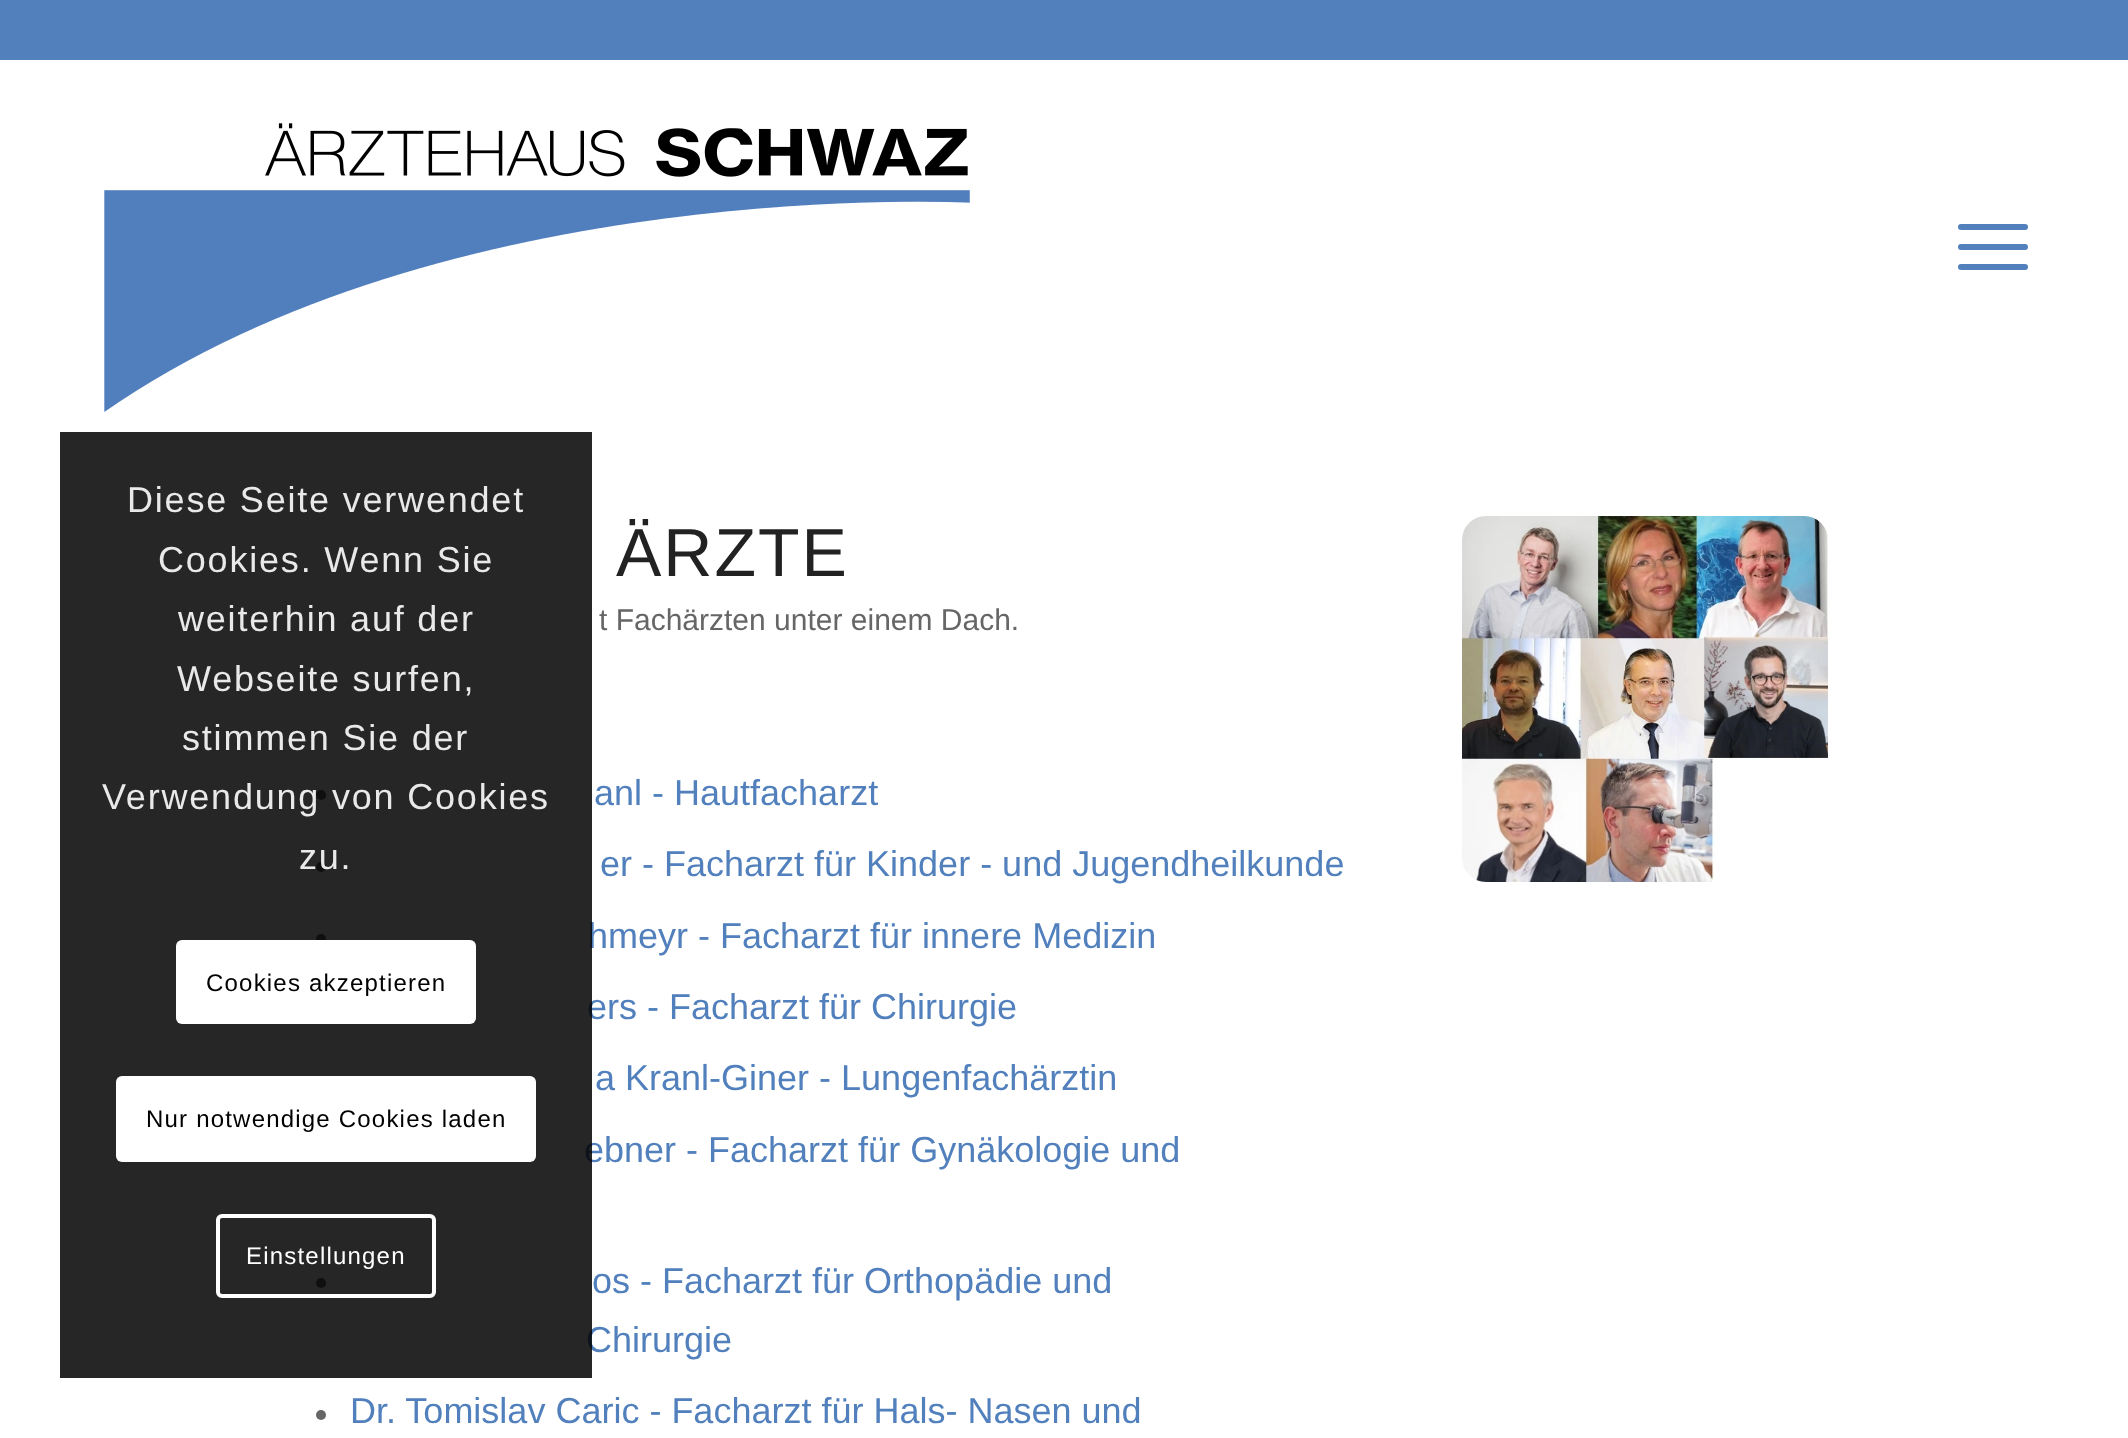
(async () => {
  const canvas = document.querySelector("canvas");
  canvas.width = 2128;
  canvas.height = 1438;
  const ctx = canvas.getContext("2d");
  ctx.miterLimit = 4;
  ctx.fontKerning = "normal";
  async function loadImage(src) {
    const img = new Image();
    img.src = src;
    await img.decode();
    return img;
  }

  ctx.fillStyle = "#ffffff";
  ctx.fillRect(0, 0, 2128, 1438);
  ctx.fillStyle = "#5180bd";
  ctx.fillRect(0, 0, 2128, 60);
  ctx.drawImage(await loadImage("img/1.png"), 104, 123, 866, 289);
  ctx.beginPath();
  ctx.roundRect(1958, 244, 70, 6, 3);
  ctx.fill();
  ctx.beginPath();
  ctx.roundRect(1958, 224, 70, 6, 3);
  ctx.fill();
  ctx.beginPath();
  ctx.roundRect(1958, 264, 70, 6, 3);
  ctx.fill();
  ctx.fillStyle = "#666666";
  ctx.beginPath();
  ctx.arc(321, 795, 5, 0, Math.PI * 2);
  ctx.fill();
  ctx.beginPath();
  ctx.arc(321, 867, 5, 0, Math.PI * 2);
  ctx.fill();
  ctx.beginPath();
  ctx.arc(321, 939, 5, 0, Math.PI * 2);
  ctx.fill();
  ctx.beginPath();
  ctx.arc(321, 1283, 5, 0, Math.PI * 2);
  ctx.fill();
  ctx.beginPath();
  ctx.arc(321, 1415, 5, 0, Math.PI * 2);
  ctx.fill();
  ctx.drawImage(await loadImage("img/2.png"), 1462, 516, 366, 366);
  ctx.letterSpacing = "2px";
  ctx.font = "68px Liberation Sans";
  ctx.fillStyle = "#222222";
  ctx.fillText("ÄRZTE", 616, 576);
  ctx.letterSpacing = "0px";
  ctx.font = "30px Liberation Sans";
  ctx.fillStyle = "#666666";
  ctx.fillText("t Fachärzten unter einem Dach.", 599, 630);
  ctx.font = "36px Liberation Sans";
  ctx.fillStyle = "#5180bd";
  for (const [text, x, y] of [
    ["anl - Hautfacharzt", 594, 805],
    ["er - Facharzt für Kinder - und Jugendheilkunde", 600, 876],
    ["hmeyr - Facharzt für innere Medizin", 588, 948],
    ["ers - Facharzt für Chirurgie", 587, 1019],
    ["a Kranl-Giner - Lungenfachärztin", 595, 1090],
    ["ebner - Facharzt für Gynäkologie und", 584, 1162],
    ["os - Facharzt für Orthopädie und", 592, 1293],
    ["Chirurgie", 586, 1352],
  ]) {
    ctx.fillText(text, x, y);
  }
  ctx.fillStyle = "rgba(0, 0, 0, 0.85)";
  ctx.fillRect(60, 432, 532, 946);
  ctx.beginPath();
  ctx.roundRect(218, 1216, 216, 80, 4);
  ctx.strokeStyle = "#ffffff";
  ctx.lineWidth = 4;
  ctx.stroke();
  ctx.letterSpacing = "1.2px";
  ctx.font = "24px Liberation Sans";
  ctx.fillStyle = "#ffffff";
  ctx.fillText("Einstellungen", 246, 1264);
  ctx.beginPath();
  ctx.roundRect(116, 1076, 420, 86, 6);
  ctx.fill();
  ctx.fillStyle = "#000000";
  ctx.fillText("Nur notwendige Cookies laden", 146, 1127);
  ctx.fillStyle = "#ffffff";
  ctx.beginPath();
  ctx.roundRect(176, 940, 300, 84, 6);
  ctx.fill();
  ctx.fillStyle = "#000000";
  ctx.fillText("Cookies akzeptieren", 206, 991);
  ctx.letterSpacing = "1.8px";
  ctx.font = "36px Liberation Sans";
  ctx.fillStyle = "#e9e9e9";
  for (const [text, x, y] of [
    ["zu.", 299, 869],
    ["Verwendung von Cookies", 102, 809],
    ["stimmen Sie der", 182, 750],
    ["Webseite surfen,", 177, 691],
    ["weiterhin auf der", 178, 631],
    ["Cookies. Wenn Sie", 158, 572],
    ["Diese Seite verwendet", 127, 512],
  ]) {
    ctx.fillText(text, x, y);
  }
  ctx.letterSpacing = "0px";
  ctx.fillStyle = "#5180bd";
  ctx.fillText("Dr. Tomislav Caric - Facharzt für Hals- Nasen und", 350, 1423);
})();
